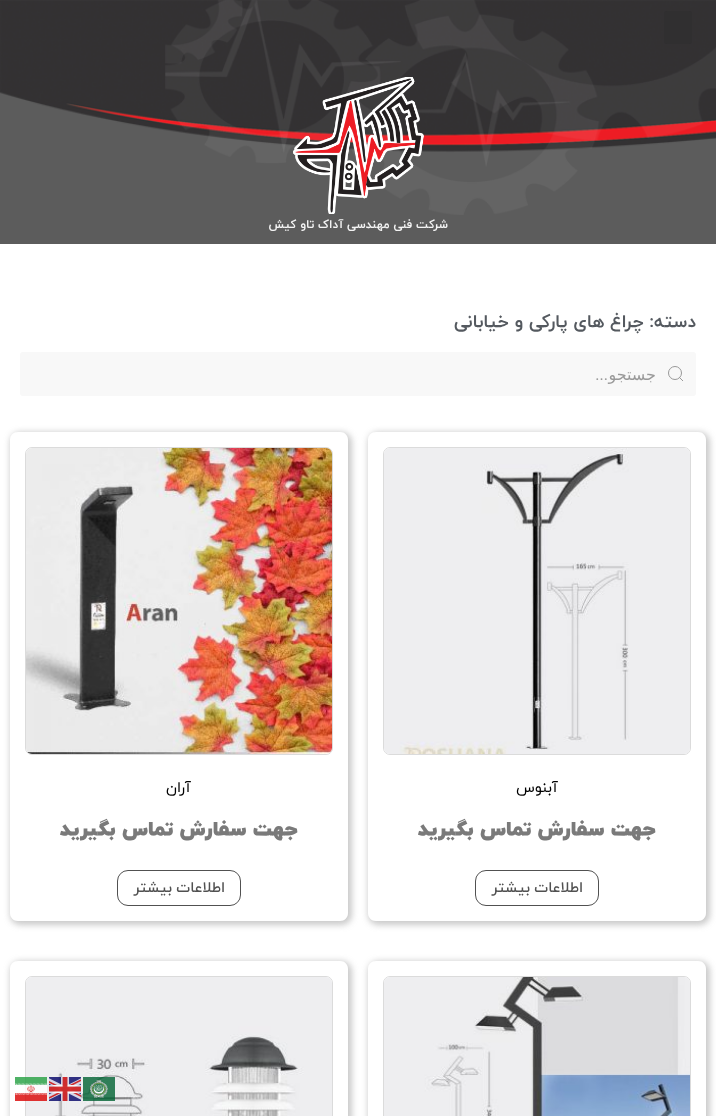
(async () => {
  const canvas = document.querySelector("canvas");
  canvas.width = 716;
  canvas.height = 1116;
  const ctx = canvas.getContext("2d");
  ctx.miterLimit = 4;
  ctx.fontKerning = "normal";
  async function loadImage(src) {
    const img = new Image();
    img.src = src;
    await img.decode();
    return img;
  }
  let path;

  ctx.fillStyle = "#ffffff";
  ctx.fillRect(0, 0, 716, 1116);
  ctx.fillStyle = "#5c5c5c";
  ctx.fillRect(0, 0, 716, 244);
  ctx.drawImage(await loadImage("img/1.png"), 0, 0, 716, 215);
  ctx.fillStyle = "#302f30";
  ctx.beginPath();
  ctx.roundRect(664, 11, 28, 33, 3);
  ctx.fill();
  ctx.drawImage(await loadImage("img/2.png"), 293, 77, 131, 137);
  ctx.fillStyle = "#f8f8f8";
  ctx.beginPath();
  ctx.roundRect(20, 352, 676, 44, 3);
  ctx.fill();
  ctx.beginPath();
  ctx.arc(675, 373, 6.5, 0, Math.PI * 2);
  ctx.strokeStyle = "#999999";
  ctx.stroke();
  path = new Path2D("M679.5 377.5L683 381Z");
  ctx.stroke(path);
  ctx.save();
  path = new Path2D("M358 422H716V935H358ZM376 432H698C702.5 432 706 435.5 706 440V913C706 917.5 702.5 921 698 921H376C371.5 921 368 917.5 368 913V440C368 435.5 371.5 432 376 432Z");
  ctx.clip(path, "evenodd");
  ctx.fillStyle = "rgba(122, 122, 122, 0.4)";
  ctx.filter = "blur(3px)";
  ctx.beginPath();
  ctx.roundRect(368, 432, 342, 493, 10);
  ctx.fill();
  ctx.filter = "none";
  ctx.restore();
  ctx.fillStyle = "rgba(255, 255, 255, 0.28)";
  ctx.beginPath();
  ctx.roundRect(368, 432, 338, 489, 8);
  ctx.fill();
  ctx.beginPath();
  ctx.roundRect(383.5, 447.5, 307, 307, 6.5);
  ctx.strokeStyle = "#dbdbdb";
  ctx.stroke();
  ctx.drawImage(await loadImage("img/3.png"), 384, 448, 306, 306);
  ctx.beginPath();
  ctx.roundRect(475.5, 870.5, 123, 35, 10.5);
  ctx.strokeStyle = "#515151";
  ctx.stroke();
  ctx.save();
  path = new Path2D("M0 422H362V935H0ZM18 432H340C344.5 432 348 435.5 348 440V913C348 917.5 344.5 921 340 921H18C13.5 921 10 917.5 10 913V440C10 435.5 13.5 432 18 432Z");
  ctx.clip(path, "evenodd");
  ctx.fillStyle = "rgba(122, 122, 122, 0.4)";
  ctx.filter = "blur(3px)";
  ctx.beginPath();
  ctx.roundRect(10, 432, 342, 493, 10);
  ctx.fill();
  ctx.filter = "none";
  ctx.restore();
  ctx.beginPath();
  ctx.roundRect(10, 432, 338, 489, 8);
  ctx.fill();
  ctx.beginPath();
  ctx.roundRect(25.5, 447.5, 307, 307, 6.5);
  ctx.strokeStyle = "#dbdbdb";
  ctx.stroke();
  ctx.drawImage(await loadImage("img/4.png"), 26, 448, 306, 306);
  ctx.beginPath();
  ctx.roundRect(117.5, 870.5, 123, 35, 10.5);
  ctx.strokeStyle = "#515151";
  ctx.stroke();
  ctx.save();
  path = new Path2D("M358 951H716V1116H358ZM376 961H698C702.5 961 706 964.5 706 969V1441C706 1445.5 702.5 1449 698 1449H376C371.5 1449 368 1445.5 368 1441V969C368 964.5 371.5 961 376 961Z");
  ctx.clip(path, "evenodd");
  ctx.fillStyle = "rgba(122, 122, 122, 0.4)";
  ctx.filter = "blur(3px)";
  ctx.beginPath();
  ctx.roundRect(368, 961, 342, 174, 10);
  ctx.fill();
  ctx.filter = "none";
  ctx.restore();
  ctx.beginPath();
  ctx.roundRect(368, 961, 338, 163, 8);
  ctx.fill();
  ctx.beginPath();
  ctx.roundRect(383.5, 976.5, 307, 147, 6.5);
  ctx.strokeStyle = "#dbdbdb";
  ctx.stroke();
  ctx.drawImage(await loadImage("img/5.png"), 384, 977, 306, 139);
  ctx.save();
  path = new Path2D("M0 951H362V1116H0ZM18 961H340C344.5 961 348 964.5 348 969V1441C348 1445.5 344.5 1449 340 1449H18C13.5 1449 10 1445.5 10 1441V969C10 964.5 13.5 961 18 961Z");
  ctx.clip(path, "evenodd");
  ctx.fillStyle = "rgba(122, 122, 122, 0.4)";
  ctx.filter = "blur(3px)";
  ctx.beginPath();
  ctx.roundRect(10, 961, 342, 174, 10);
  ctx.fill();
  ctx.filter = "none";
  ctx.restore();
  ctx.beginPath();
  ctx.roundRect(10, 961, 338, 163, 8);
  ctx.fill();
  ctx.beginPath();
  ctx.roundRect(25.5, 976.5, 307, 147, 6.5);
  ctx.stroke();
  ctx.drawImage(await loadImage("img/6.png"), 26, 977, 306, 139);
  ctx.drawImage(await loadImage("img/7.png"), 83, 1077, 32, 24);
  ctx.drawImage(await loadImage("img/8.png"), 49, 1077, 32, 24);
  ctx.drawImage(await loadImage("img/9.png"), 15, 1077, 32, 24);
  ctx.direction = "rtl";
  ctx.font = "bold 12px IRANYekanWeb";
  ctx.fillStyle = "#f4f4f4";
  ctx.fillText("شرکت فنی مهندسی آداک تاو کیش", 448, 228);
  ctx.font = "bold 18px IRANYekanWeb";
  ctx.fillStyle = "#54595f";
  ctx.fillText("دسته: چراغ های پارکی و خیابانی", 696, 327);
  ctx.font = "16px Roboto";
  ctx.fillStyle = "#999999";
  ctx.fillText("...", 608, 380);
  ctx.font = "16px DejaVu Sans";
  ctx.fillText("جستجو", 656, 380);
  ctx.font = "15px IRANYekanWeb";
  ctx.fillStyle = "#000000";
  ctx.fillText("آبنوس", 558, 792);
  ctx.font = "900 20px IRANYekanWeb";
  ctx.fillStyle = "#7a7a7a";
  ctx.fillText("جهت سفارش تماس بگیرید", 656, 835);
  ctx.font = "500 15px IRANYekanWeb";
  ctx.fillStyle = "#515151";
  ctx.fillText("اطلاعات بیشتر", 583, 892);
  ctx.font = "15px IRANYekanWeb";
  ctx.fillStyle = "#000000";
  ctx.fillText("آران", 191, 792);
  ctx.font = "900 20px IRANYekanWeb";
  ctx.fillStyle = "#7a7a7a";
  ctx.fillText("جهت سفارش تماس بگیرید", 298, 835);
  ctx.font = "500 15px IRANYekanWeb";
  ctx.fillStyle = "#515151";
  ctx.fillText("اطلاعات بیشتر", 225, 892);
})();
